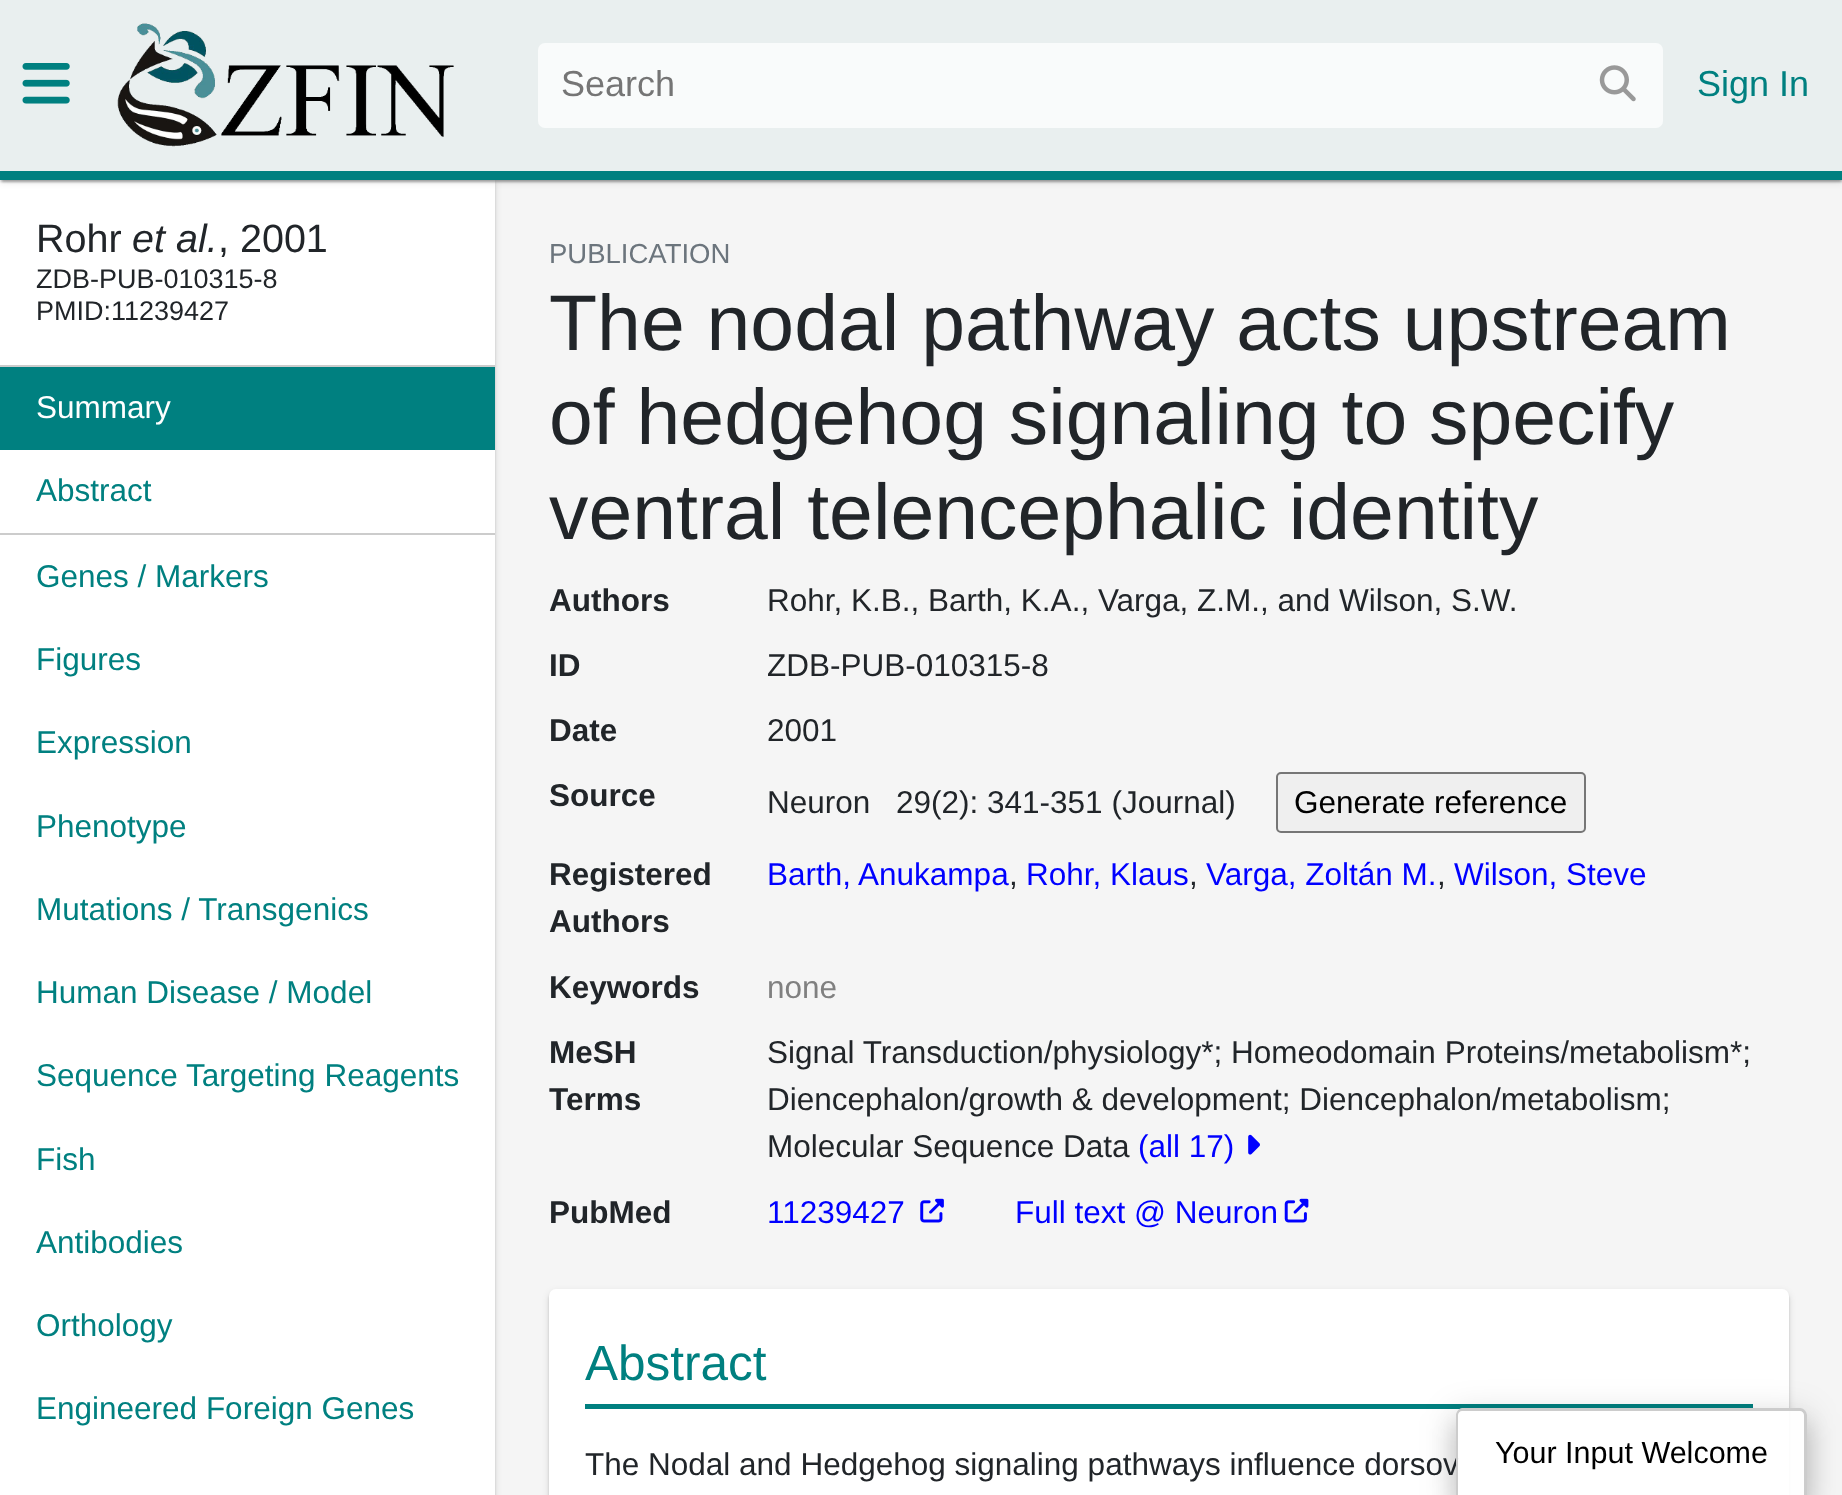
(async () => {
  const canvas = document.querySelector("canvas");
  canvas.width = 1842;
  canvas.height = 1495;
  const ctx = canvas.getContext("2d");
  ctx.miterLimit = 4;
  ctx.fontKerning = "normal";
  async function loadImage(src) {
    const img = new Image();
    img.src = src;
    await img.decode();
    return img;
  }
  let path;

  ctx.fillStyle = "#f5f5f5";
  ctx.fillRect(0, 0, 1842, 1495);
  ctx.fillStyle = "rgba(0, 0, 0, 0.12)";
  ctx.filter = "blur(3.5px)";
  ctx.beginPath();
  ctx.rect(0, 182, 495, 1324);
  ctx.fill();
  ctx.filter = "none";
  ctx.fillStyle = "rgba(0, 0, 0, 0.14)";
  ctx.filter = "blur(1px)";
  ctx.beginPath();
  ctx.rect(0, 182, 495, 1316);
  ctx.fill();
  ctx.filter = "none";
  ctx.fillStyle = "#ffffff";
  ctx.fillRect(0, 180, 495, 1315);
  ctx.fillStyle = "rgba(0, 0, 0, 0.12)";
  ctx.filter = "blur(3.5px)";
  ctx.beginPath();
  ctx.rect(0, 2, 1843, 180);
  ctx.fill();
  ctx.filter = "none";
  ctx.fillStyle = "rgba(0, 0, 0, 0.14)";
  ctx.filter = "blur(1px)";
  ctx.beginPath();
  ctx.rect(0, 2, 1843, 180);
  ctx.fill();
  ctx.filter = "none";
  ctx.fillStyle = "rgba(0, 0, 0, 0.2)";
  ctx.filter = "blur(1px)";
  ctx.beginPath();
  ctx.rect(2, 7, 1839, 175);
  ctx.fill();
  ctx.filter = "none";
  ctx.fillStyle = "#e9efef";
  ctx.fillRect(0, 0, 1842, 171);
  ctx.fillStyle = "#008080";
  ctx.fillRect(0, 171, 1842, 9);
  ctx.drawImage(await loadImage("img/1.png"), 22, 63, 48, 41);
  ctx.drawImage(await loadImage("img/2.png"), 117, 23, 337, 124);
  ctx.fillStyle = "#f9fbfb";
  ctx.beginPath();
  ctx.roundRect(538, 43, 1125, 85, 7);
  ctx.fill();
  ctx.drawImage(await loadImage("img/3.png"), 1599, 65, 37, 37);
  for (const [x, y, w, h, color] of [
    [0, 365, 495, 2, "#cccccc"],
    [0, 367, 495, 83, "#008080"],
    [0, 533, 495, 2, "#cccccc"],
  ]) {
    ctx.fillStyle = color;
    ctx.fillRect(x, y, w, h);
  }
  ctx.fillStyle = "#efefef";
  ctx.beginPath();
  ctx.roundRect(1277, 773, 308, 59, 4);
  ctx.fill();
  ctx.strokeStyle = "#767676";
  ctx.lineWidth = 2;
  ctx.stroke();
  ctx.drawImage(await loadImage("img/4.png"), 1248, 1134, 12, 21);
  ctx.drawImage(await loadImage("img/5.png"), 920, 1198, 24, 25);
  ctx.drawImage(await loadImage("img/6.png"), 1284, 1198, 25, 25);
  ctx.fillStyle = "rgba(0, 0, 0, 0.12)";
  ctx.filter = "blur(3.5px)";
  ctx.beginPath();
  ctx.roundRect(549, 1292, 1240, 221, 7);
  ctx.fill();
  ctx.filter = "none";
  ctx.fillStyle = "rgba(0, 0, 0, 0.14)";
  ctx.filter = "blur(1px)";
  ctx.beginPath();
  ctx.roundRect(549, 1292, 1240, 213, 7);
  ctx.fill();
  ctx.filter = "none";
  ctx.fillStyle = "#ffffff";
  ctx.beginPath();
  ctx.roundRect(549, 1289, 1240, 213, 7);
  ctx.fill();
  ctx.fillStyle = "#008080";
  ctx.fillRect(585, 1404, 1168, 5);
  ctx.save();
  path = new Path2D("M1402 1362H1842V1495H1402ZM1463 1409H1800C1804 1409 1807 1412 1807 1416V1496H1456V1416C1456 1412 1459 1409 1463 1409Z");
  ctx.clip(path, "evenodd");
  ctx.fillStyle = "rgba(0, 0, 0, 0.12)";
  ctx.filter = "blur(16px)";
  ctx.beginPath();
  ctx.roundRect(1451, 1411, 360, 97, 11);
  ctx.fill();
  ctx.filter = "none";
  ctx.restore();
  ctx.save();
  path = new Path2D("M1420 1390H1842V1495H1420ZM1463 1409H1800C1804 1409 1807 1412 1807 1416V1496H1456V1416C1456 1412 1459 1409 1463 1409Z");
  ctx.clip(path, "evenodd");
  ctx.fillStyle = "rgba(0, 0, 0, 0.14)";
  ctx.filter = "blur(11px)";
  ctx.beginPath();
  ctx.roundRect(1454, 1424, 355, 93, 9);
  ctx.fill();
  ctx.filter = "none";
  ctx.restore();
  ctx.font = "36px Liberation Sans";
  ctx.fillStyle = "#757575";
  ctx.fillText("Search", 561, 96);
  ctx.fillStyle = "#008080";
  ctx.fillText("Sign In", 1697, 96);
  ctx.font = "39.5px Liberation Sans";
  ctx.fillStyle = "#212529";
  ctx.fillText("Rohr", 36, 252);
  ctx.font = "italic 39.5px Liberation Sans";
  ctx.fillText("et al.", 132, 252);
  ctx.font = "39.5px Liberation Sans";
  ctx.fillText(", 2001", 218, 252);
  ctx.font = "27px Liberation Sans";
  ctx.fillText("ZDB-PUB-010315-8", 36, 288);
  ctx.fillText("PMID:11239427", 36, 320);
  ctx.font = "31.5px Liberation Sans";
  ctx.fillStyle = "#ffffff";
  ctx.fillText("Summary", 36, 418);
  ctx.fillStyle = "#008080";
  for (const [text, x, y] of [
    ["Abstract", 36, 501],
    ["Genes / Markers", 36, 587],
    ["Figures", 36, 670],
    ["Expression", 36, 753],
    ["Phenotype", 36, 837],
    ["Mutations / Transgenics", 36, 920],
    ["Human Disease / Model", 36, 1003],
    ["Sequence Targeting Reagents", 36, 1086],
    ["Fish", 36, 1170],
    ["Antibodies", 36, 1253],
    ["Orthology", 36, 1336],
    ["Engineered Foreign Genes", 36, 1419],
  ]) {
    ctx.fillText(text, x, y);
  }
  ctx.font = "27.5px Liberation Sans";
  ctx.fillStyle = "#6c757d";
  ctx.fillText("PUBLICATION", 549, 263);
  ctx.font = "78.75px Liberation Sans";
  ctx.fillStyle = "#212529";
  for (const [text, x, y] of [
    ["The nodal pathway acts upstream", 549, 350],
    ["of hedgehog signaling to specify", 549, 444],
    ["ventral telencephalic identity", 549, 539],
  ]) {
    ctx.fillText(text, x, y);
  }
  ctx.font = "bold 31.5px Liberation Sans";
  ctx.fillText("Authors", 549, 611);
  ctx.font = "31.5px Liberation Sans";
  ctx.fillText("Rohr, K.B., Barth, K.A., Varga, Z.M., and Wilson, S.W.", 767, 611);
  ctx.font = "bold 31.5px Liberation Sans";
  ctx.fillText("ID", 549, 676);
  ctx.font = "31.5px Liberation Sans";
  ctx.fillText("ZDB-PUB-010315-8", 767, 676);
  ctx.font = "bold 31.5px Liberation Sans";
  ctx.fillText("Date", 549, 741);
  ctx.font = "31.5px Liberation Sans";
  ctx.fillText("2001", 767, 741);
  ctx.font = "bold 31.5px Liberation Sans";
  ctx.fillText("Source", 549, 806);
  ctx.font = "31.5px Liberation Sans";
  ctx.fillText("Neuron", 767, 813);
  ctx.fillText("29(2): 341-351 (Journal)", 896, 813);
  ctx.fillStyle = "#000000";
  ctx.fillText("Generate reference", 1294, 813);
  ctx.font = "bold 31.5px Liberation Sans";
  ctx.fillStyle = "#212529";
  ctx.fillText("Registered", 549, 885);
  ctx.fillText("Authors", 549, 932);
  ctx.font = "31.5px Liberation Sans";
  ctx.fillStyle = "#0000ff";
  ctx.fillText("Barth, Anukampa", 767, 885);
  ctx.fillStyle = "#212529";
  ctx.fillText(",", 1009, 885);
  ctx.fillStyle = "#0000ff";
  ctx.fillText("Rohr, Klaus", 1026, 885);
  ctx.fillStyle = "#212529";
  ctx.fillText(",", 1189, 885);
  ctx.fillStyle = "#0000ff";
  ctx.fillText("Varga, Zoltán M.", 1206, 885);
  ctx.fillStyle = "#212529";
  ctx.fillText(",", 1437, 885);
  ctx.fillStyle = "#0000ff";
  ctx.fillText("Wilson, Steve", 1454, 885);
  ctx.font = "bold 31.5px Liberation Sans";
  ctx.fillStyle = "#212529";
  ctx.fillText("Keywords", 549, 998);
  ctx.font = "31.5px Liberation Sans";
  ctx.fillStyle = "#808080";
  ctx.fillText("none", 767, 998);
  ctx.font = "bold 31.5px Liberation Sans";
  ctx.fillStyle = "#212529";
  ctx.fillText("MeSH", 549, 1063);
  ctx.fillText("Terms", 549, 1110);
  ctx.font = "31.5px Liberation Sans";
  for (const [text, x, y] of [
    ["Signal Transduction/physiology*; Homeodomain Proteins/metabolism*;", 767, 1063],
    ["Diencephalon/growth & development; Diencephalon/metabolism;", 767, 1110],
    ["Molecular Sequence Data", 767, 1157],
  ]) {
    ctx.fillText(text, x, y);
  }
  ctx.fillStyle = "#0000ff";
  ctx.fillText("(all 17)", 1138, 1157);
  ctx.font = "bold 31.5px Liberation Sans";
  ctx.fillStyle = "#212529";
  ctx.fillText("PubMed", 549, 1223);
  ctx.font = "31.5px Liberation Sans";
  ctx.fillStyle = "#0000ff";
  ctx.fillText("11239427", 767, 1223);
  ctx.fillText("Full text @ Neuron", 1015, 1223);
  ctx.font = "49.5px Liberation Sans";
  ctx.fillStyle = "#008080";
  ctx.fillText("Abstract", 585, 1380);
  ctx.font = "31.5px Liberation Sans";
  ctx.fillStyle = "#212529";
  ctx.fillText("The Nodal and Hedgehog signaling pathways influence dorsov", 585, 1475);
  ctx.fillStyle = "rgba(255, 255, 255, 0.9)";
  path = new Path2D("M1463 1409H1800C1804 1409 1807 1412 1807 1416V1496H1456V1416C1456 1412 1459 1409 1463 1409Z");
  ctx.fill(path);
  ctx.fillStyle = "#cccccc";
  path = new Path2D("M1462 1408H1800C1804 1408 1807 1412 1807 1415V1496H1456V1415C1456 1412 1459 1408 1462 1408ZM1462 1411H1800C1802 1411 1804 1413 1804 1415V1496H1458V1415C1458 1413 1460 1411 1462 1411Z");
  ctx.fill(path, "evenodd");
  ctx.font = "30.5px Liberation Sans";
  ctx.fillStyle = "#000000";
  ctx.fillText("Your Input Welcome", 1495, 1463);
})();
